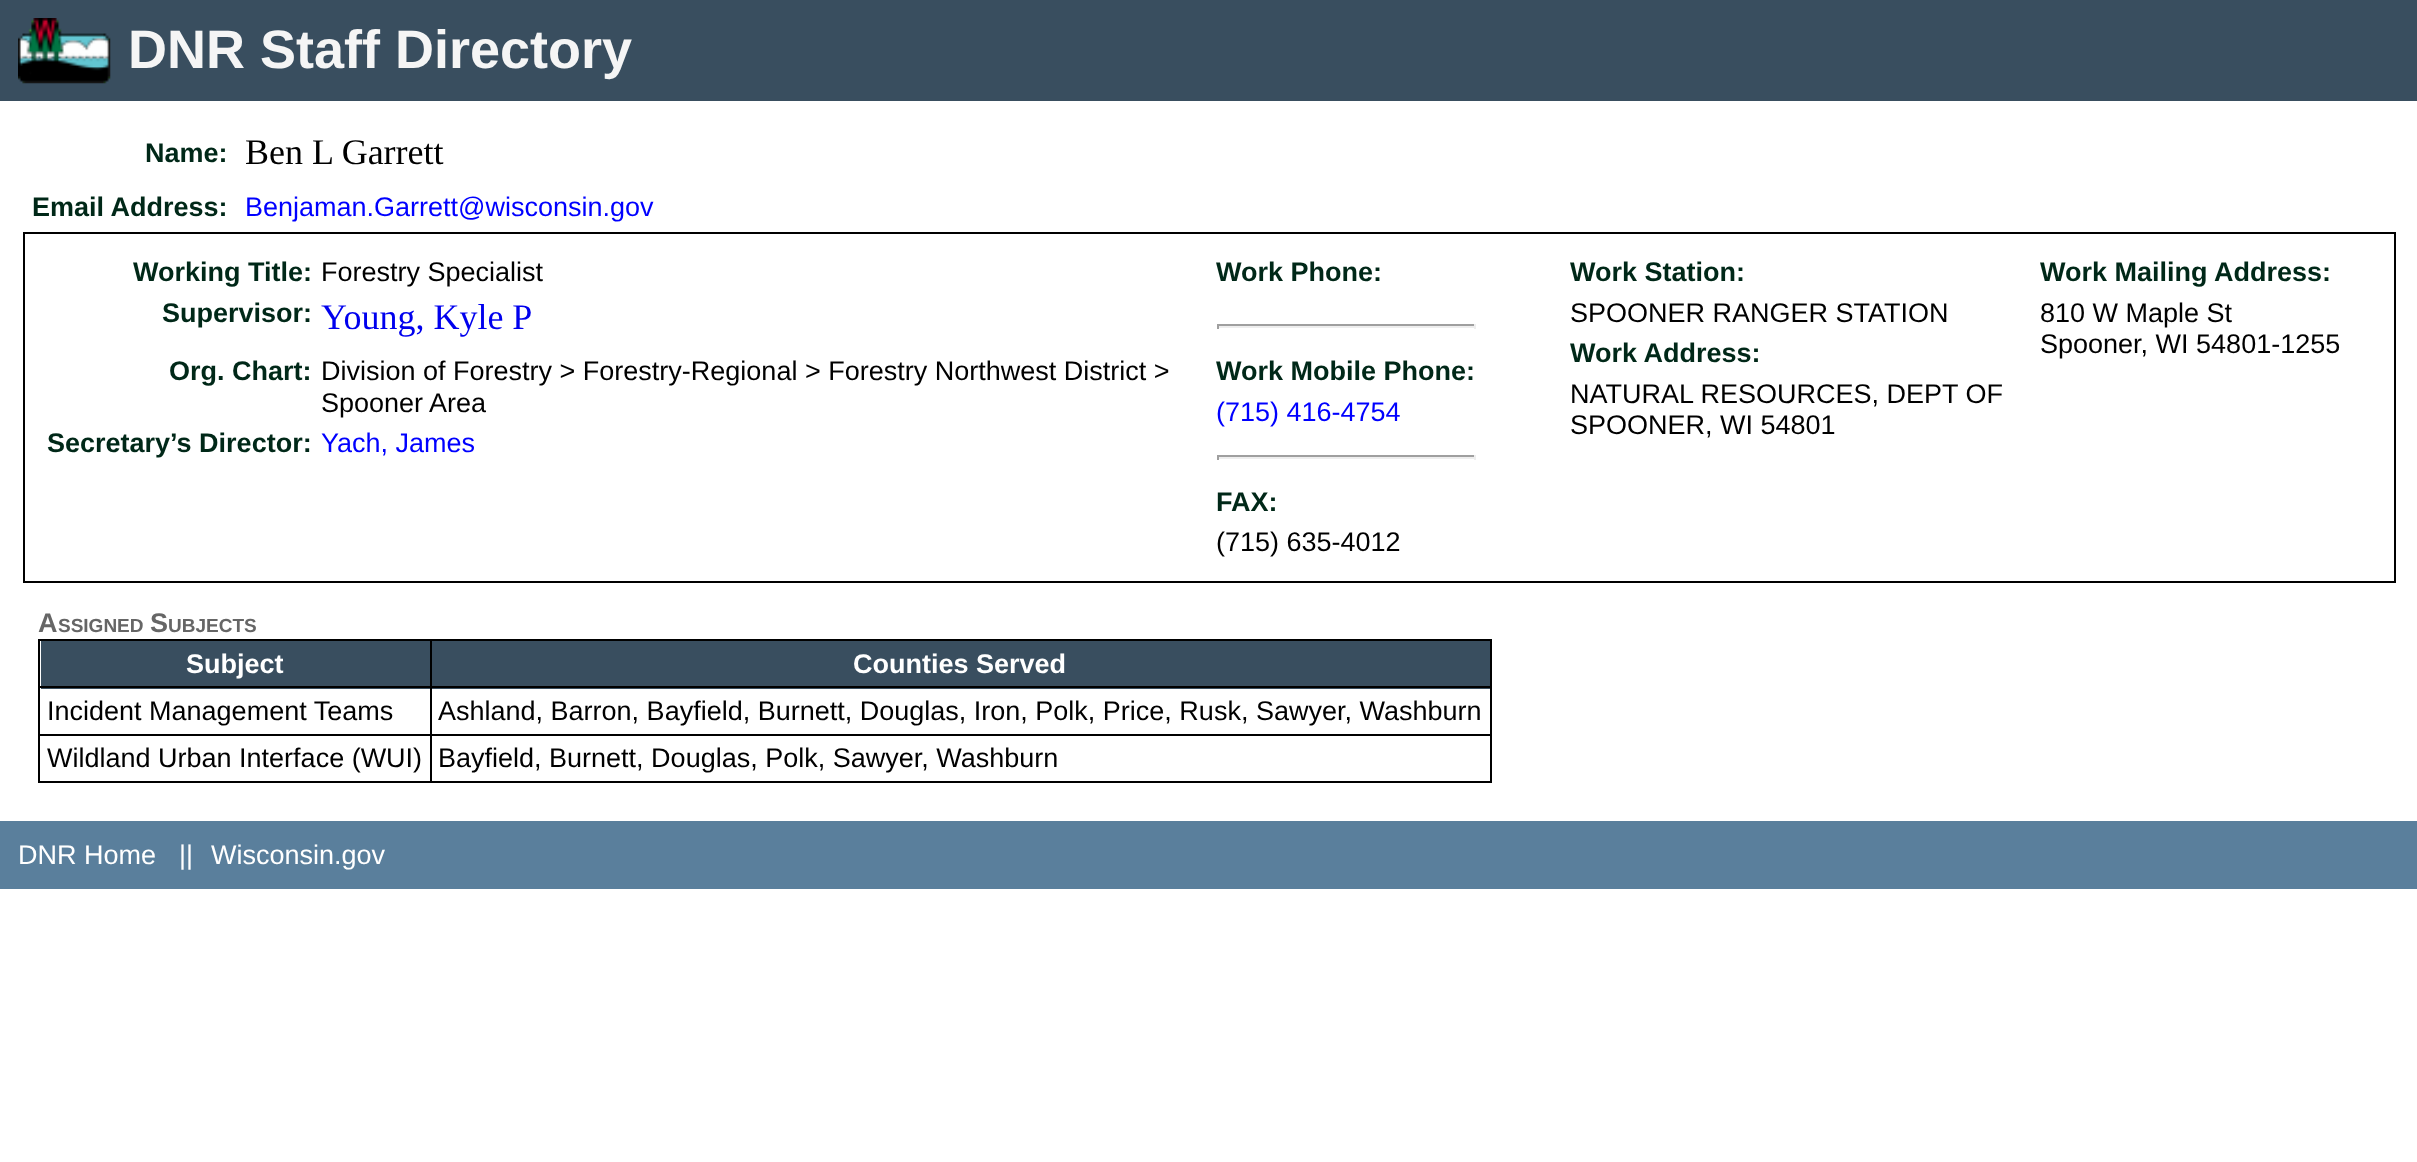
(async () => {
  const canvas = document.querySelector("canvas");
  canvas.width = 2417;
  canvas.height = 1162;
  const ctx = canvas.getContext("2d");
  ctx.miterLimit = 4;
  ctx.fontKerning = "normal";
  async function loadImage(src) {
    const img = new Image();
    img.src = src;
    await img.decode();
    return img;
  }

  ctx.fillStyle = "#ffffff";
  ctx.fillRect(0, 0, 2417, 1162);
  ctx.fillStyle = "#394e5f";
  ctx.fillRect(0, 0, 2417, 101);
  ctx.drawImage(await loadImage("img/1.png"), 18, 18, 93, 66);
  for (const [x, y, w, h, color] of [
    [23, 232, 2373, 2, "#000000"],
    [2394, 232, 2, 351, "#000000"],
    [23, 581, 2373, 2, "#000000"],
    [23, 232, 2, 351, "#000000"],
    [1217, 324, 259, 2, "#9f9f9f"],
    [1474, 324, 2, 5, "#eeeeee"],
    [1217, 326, 259, 2, "#eeeeee"],
    [1217, 324, 2, 5, "#9f9f9f"],
    [1217, 455, 259, 2, "#9f9f9f"],
    [1474, 455, 2, 5, "#eeeeee"],
    [1217, 457, 259, 2, "#eeeeee"],
    [1217, 455, 2, 5, "#9f9f9f"],
    [38, 639, 1454, 2, "#000000"],
    [1490, 639, 2, 144, "#000000"],
    [38, 781, 1454, 2, "#000000"],
    [38, 639, 2, 144, "#000000"],
    [41, 641, 1449, 48, "#394e5f"],
    [430, 686, 1062, 2, "#000000"],
    [430, 734, 1062, 2, "#000000"],
    [430, 734, 2, 49, "#000000"],
    [38, 734, 394, 2, "#000000"],
    [430, 686, 2, 50, "#000000"],
    [38, 686, 394, 2, "#000000"],
    [430, 639, 2, 50, "#000000"],
    [0, 821, 2417, 68, "#5a7f9c"],
  ]) {
    ctx.fillStyle = color;
    ctx.fillRect(x, y, w, h);
  }
  ctx.font = "bold 54px Liberation Sans";
  ctx.fillStyle = "#f5f5f5";
  ctx.fillText("DNR Staff Directory", 128, 68);
  ctx.font = "bold 27px Liberation Sans";
  ctx.fillStyle = "#002818";
  ctx.fillText("Name:", 145, 162);
  ctx.font = "36px Liberation Serif";
  ctx.fillStyle = "#000000";
  ctx.fillText("Ben L Garrett", 245, 164);
  ctx.font = "bold 27px Liberation Sans";
  ctx.fillStyle = "#002818";
  ctx.fillText("Email Address:", 32, 216);
  ctx.font = "27px Liberation Sans";
  ctx.fillStyle = "#0000ff";
  ctx.fillText("Benjaman.Garrett@wisconsin.gov", 245, 216);
  ctx.font = "bold 27px Liberation Sans";
  ctx.fillStyle = "#002818";
  ctx.fillText("Working Title:", 133, 281);
  ctx.font = "27px Liberation Sans";
  ctx.fillStyle = "#000000";
  ctx.fillText("Forestry Specialist", 321, 281);
  ctx.font = "bold 27px Liberation Sans";
  ctx.fillStyle = "#002818";
  ctx.fillText("Supervisor:", 162, 322);
  ctx.font = "36px Liberation Serif";
  ctx.fillStyle = "#0000ee";
  ctx.fillText("Young, Kyle P", 321, 329);
  ctx.font = "bold 27px Liberation Sans";
  ctx.fillStyle = "#002818";
  ctx.fillText("Org. Chart:", 169, 380);
  ctx.font = "27px Liberation Sans";
  ctx.fillStyle = "#000000";
  ctx.fillText("Division of Forestry > Forestry-Regional > Forestry Northwest District >", 321, 380);
  ctx.fillText("Spooner Area", 321, 412);
  ctx.font = "bold 27px Liberation Sans";
  ctx.fillStyle = "#002818";
  ctx.fillText("Secretary’s Director:", 47, 452);
  ctx.font = "27px Liberation Sans";
  ctx.fillStyle = "#0000ff";
  ctx.fillText("Yach, James", 321, 452);
  ctx.font = "bold 27px Liberation Sans";
  ctx.fillStyle = "#002818";
  ctx.fillText("Work Phone:", 1216, 281);
  ctx.fillText("Work Mobile Phone:", 1216, 380);
  ctx.font = "27px Liberation Sans";
  ctx.fillStyle = "#0000ff";
  ctx.fillText("(715) 416-4754", 1216, 421);
  ctx.font = "bold 27px Liberation Sans";
  ctx.fillStyle = "#002818";
  ctx.fillText("FAX:", 1216, 511);
  ctx.font = "27px Liberation Sans";
  ctx.fillStyle = "#000000";
  ctx.fillText("(715) 635-4012", 1216, 551);
  ctx.font = "bold 27px Liberation Sans";
  ctx.fillStyle = "#002818";
  ctx.fillText("Work Station:", 1570, 281);
  ctx.font = "27px Liberation Sans";
  ctx.fillStyle = "#000000";
  ctx.fillText("SPOONER RANGER STATION", 1570, 322);
  ctx.font = "bold 27px Liberation Sans";
  ctx.fillStyle = "#002818";
  ctx.fillText("Work Address:", 1570, 362);
  ctx.font = "27px Liberation Sans";
  ctx.fillStyle = "#000000";
  ctx.fillText("NATURAL RESOURCES, DEPT OF", 1570, 403);
  ctx.fillText("SPOONER, WI 54801", 1570, 434);
  ctx.font = "bold 27px Liberation Sans";
  ctx.fillStyle = "#002818";
  ctx.fillText("Work Mailing Address:", 2040, 281);
  ctx.font = "27px Liberation Sans";
  ctx.fillStyle = "#000000";
  ctx.fillText("810 W Maple St", 2040, 322);
  ctx.fillText("Spooner, WI 54801-1255", 2040, 353);
  ctx.font = "bold 27px Liberation Sans";
  ctx.fillStyle = "#666666";
  ctx.fillText("A", 38, 632);
  ctx.font = "bold 19px Liberation Sans";
  ctx.fillText("SSIGNED", 58, 632);
  ctx.font = "bold 27px Liberation Sans";
  ctx.fillText("S", 150, 632);
  ctx.font = "bold 19px Liberation Sans";
  ctx.fillText("UBJECTS", 168, 632);
  ctx.font = "bold 27px Liberation Sans";
  ctx.fillStyle = "#ffffff";
  ctx.fillText("Subject", 186, 673);
  ctx.fillText("Counties Served", 853, 673);
  ctx.font = "27px Liberation Sans";
  ctx.fillStyle = "#000000";
  for (const [text, x, y] of [
    ["Incident Management Teams", 47, 720],
    ["Ashland, Barron, Bayfield, Burnett, Douglas, Iron, Polk, Price, Rusk, Sawyer, Washburn", 438, 720],
    ["Wildland Urban Interface (WUI)", 47, 767],
    ["Bayfield, Burnett, Douglas, Polk, Sawyer, Washburn", 438, 767],
  ]) {
    ctx.fillText(text, x, y);
  }
  ctx.fillStyle = "#ffffff";
  for (const [text, x, y] of [
    ["DNR Home", 18, 864],
    ["||", 179, 864],
    ["Wisconsin.gov", 211, 864],
  ]) {
    ctx.fillText(text, x, y);
  }
})();
